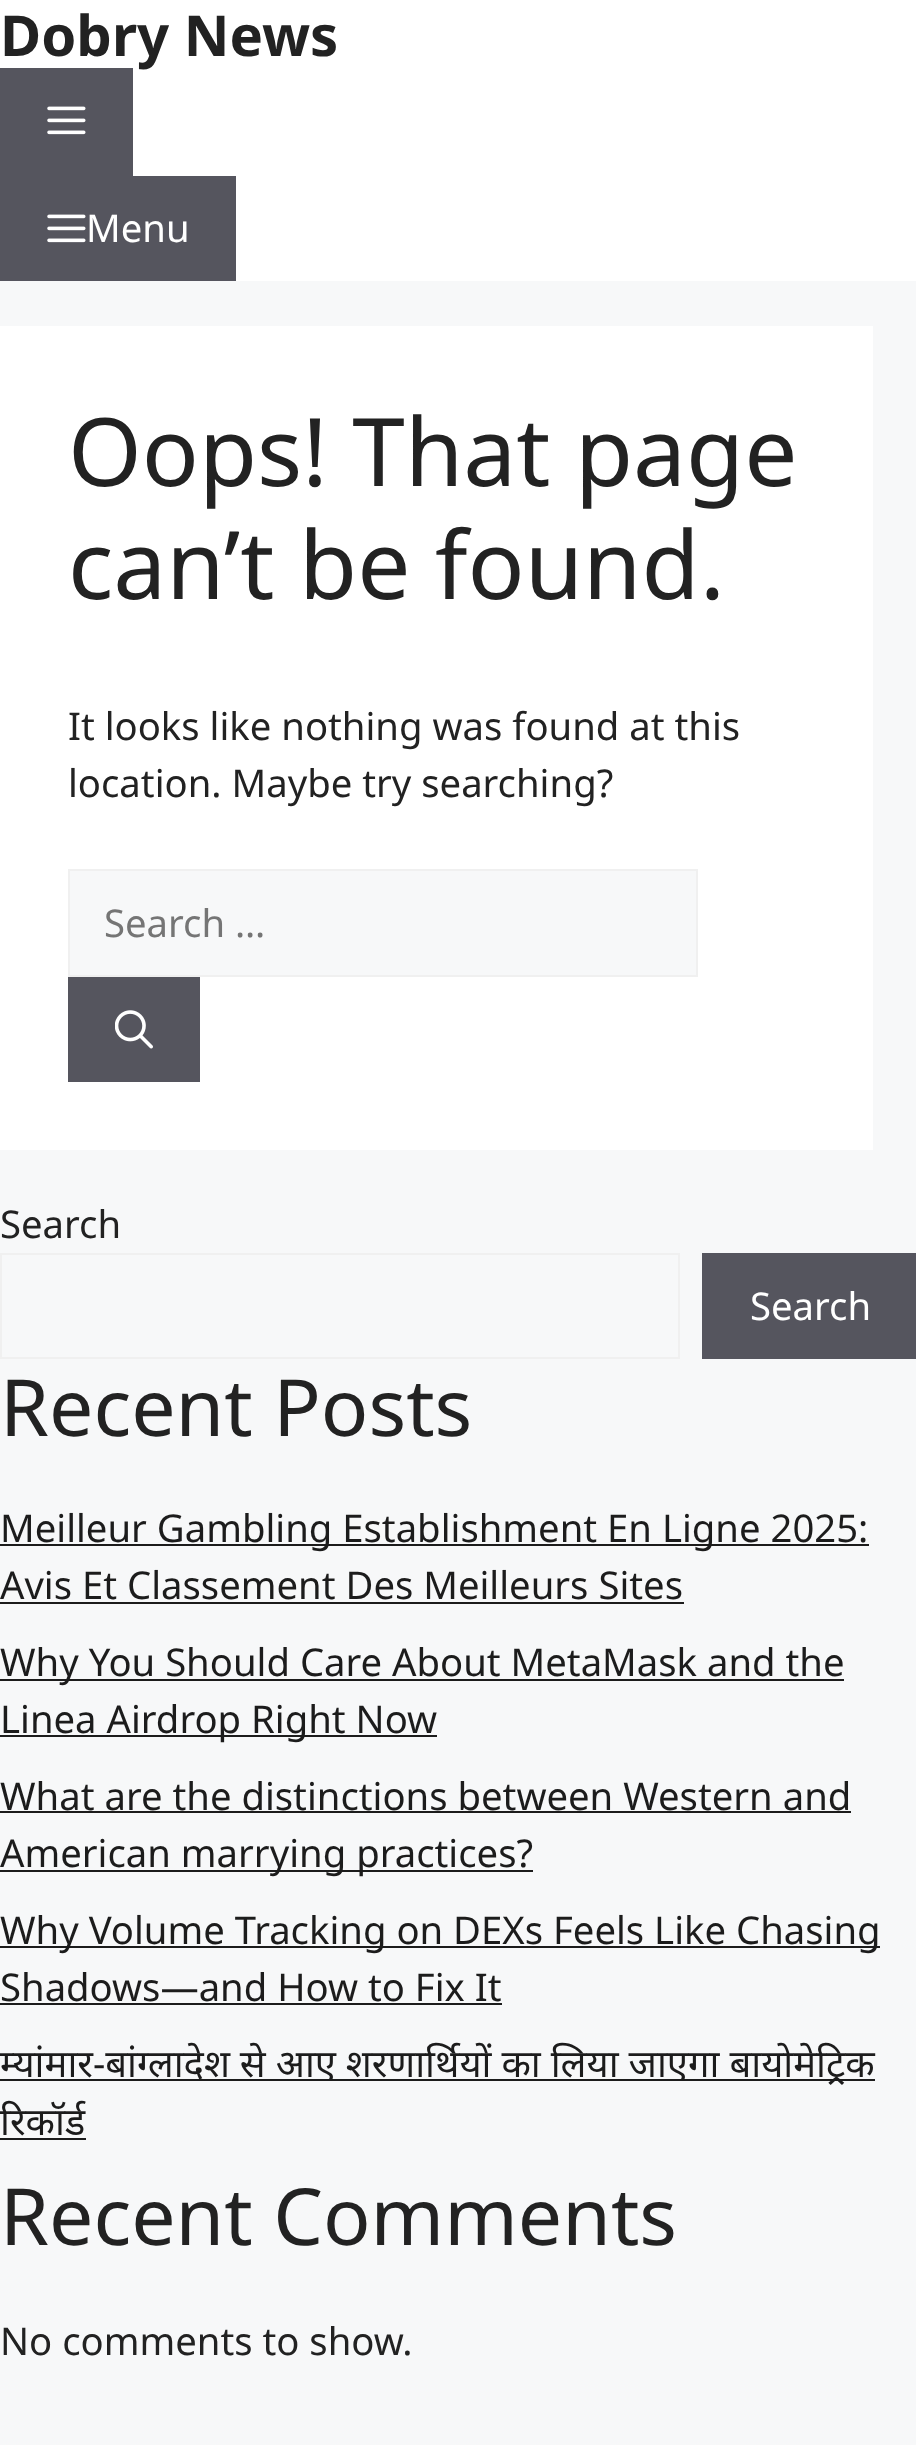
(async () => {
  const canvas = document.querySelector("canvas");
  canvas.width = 916;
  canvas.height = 2445;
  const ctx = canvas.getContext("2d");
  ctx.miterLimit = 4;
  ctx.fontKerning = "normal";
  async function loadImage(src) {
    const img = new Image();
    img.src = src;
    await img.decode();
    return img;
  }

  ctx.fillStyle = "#f7f8f9";
  ctx.fillRect(0, 0, 916, 2445);
  ctx.fillStyle = "#ffffff";
  ctx.fillRect(0, 0, 916, 281);
  ctx.fillStyle = "#55555e";
  ctx.fillRect(0, 176, 236, 105);
  ctx.drawImage(await loadImage("img/1.png"), 47, 214, 39, 29);
  ctx.fillStyle = "#ffffff";
  ctx.fillRect(0, 326, 873, 824);
  ctx.fillStyle = "#f7f8f9";
  ctx.beginPath();
  ctx.rect(69, 870, 628, 106);
  ctx.fill();
  ctx.strokeStyle = "#f0f0f0";
  ctx.lineWidth = 2;
  ctx.stroke();
  ctx.fillStyle = "#55555e";
  ctx.fillRect(68, 977, 132, 105);
  ctx.drawImage(await loadImage("img/2.png"), 115, 1010, 38, 39);
  ctx.strokeRect(1, 1254, 678, 104);
  for (const [x, y, w, h, color] of [
    [702, 1253, 214, 106, "#55555e"],
    [0, 1544, 869, 2, "#1c1c1c"],
    [0, 1602, 684, 2, "#1c1c1c"],
    [0, 1679, 844, 2, "#1c1c1c"],
    [0, 1735, 437, 2, "#1c1c1c"],
    [0, 1811, 851, 2, "#1c1c1c"],
    [0, 1870, 533, 2, "#1c1c1c"],
    [0, 1946, 880, 2, "#1c1c1c"],
    [0, 2003, 502, 2, "#1c1c1c"],
    [0, 2079, 875, 2, "#1c1c1c"],
    [0, 2138, 86, 2, "#1c1c1c"],
  ]) {
    ctx.fillStyle = color;
    ctx.fillRect(x, y, w, h);
  }
  ctx.font = "bold 56.25px Noto Sans";
  ctx.fillStyle = "#222222";
  ctx.fillText("Dobry News", 0, 56);
  ctx.fillStyle = "#55555e";
  ctx.fillRect(0, 68, 133, 108);
  ctx.drawImage(await loadImage("img/1.png"), 47, 106, 39, 29);
  ctx.font = "38.25px Noto Sans";
  ctx.fillStyle = "#ffffff";
  ctx.fillText("Menu", 86, 242);
  ctx.font = "94.5px Noto Sans";
  ctx.fillStyle = "#222222";
  ctx.fillText("Oops! That page", 68, 486);
  ctx.fillText("can’t be found.", 68, 599);
  ctx.font = "38.25px Noto Sans";
  ctx.fillText("It looks like nothing was found at this", 68, 740);
  ctx.fillText("location. Maybe try searching?", 68, 797);
  ctx.fillStyle = "#757575";
  ctx.fillText("Search …", 104, 937);
  ctx.fillStyle = "#222222";
  ctx.fillText("Search", 0, 1238);
  ctx.fillStyle = "#ffffff";
  ctx.fillText("Search", 750, 1320);
  ctx.font = "78.75px Noto Sans";
  ctx.fillStyle = "#222222";
  ctx.fillText("Recent Posts", 0, 1436);
  ctx.font = "38.25px Noto Sans";
  ctx.fillStyle = "#1c1c1c";
  for (const [text, x, y] of [
    ["Meilleur Gambling Establishment En Ligne 2025:", 0, 1542],
    ["Avis Et Classement Des Meilleurs Sites", 0, 1599],
    ["Why You Should Care About MetaMask and the", 0, 1676],
    ["Linea Airdrop Right Now", 0, 1733],
    ["What are the distinctions between Western and", 0, 1810],
    ["American marrying practices?", 0, 1867],
    ["Why Volume Tracking on DEXs Feels Like Chasing", 0, 1944],
    ["Shadows—and How to Fix It", 0, 2001],
    ["म्यांमार-बांग्लादेश से आए शरणार्थियों का लिया जाएगा बायोमेट्रिक", 0, 2077],
    ["रिकॉर्ड", 0, 2135],
  ]) {
    ctx.fillText(text, x, y);
  }
  ctx.font = "78.75px Noto Sans";
  ctx.fillStyle = "#222222";
  ctx.fillText("Recent Comments", 0, 2245);
  ctx.font = "38.25px Noto Sans";
  ctx.fillText("No comments to show.", 0, 2355);
})();
